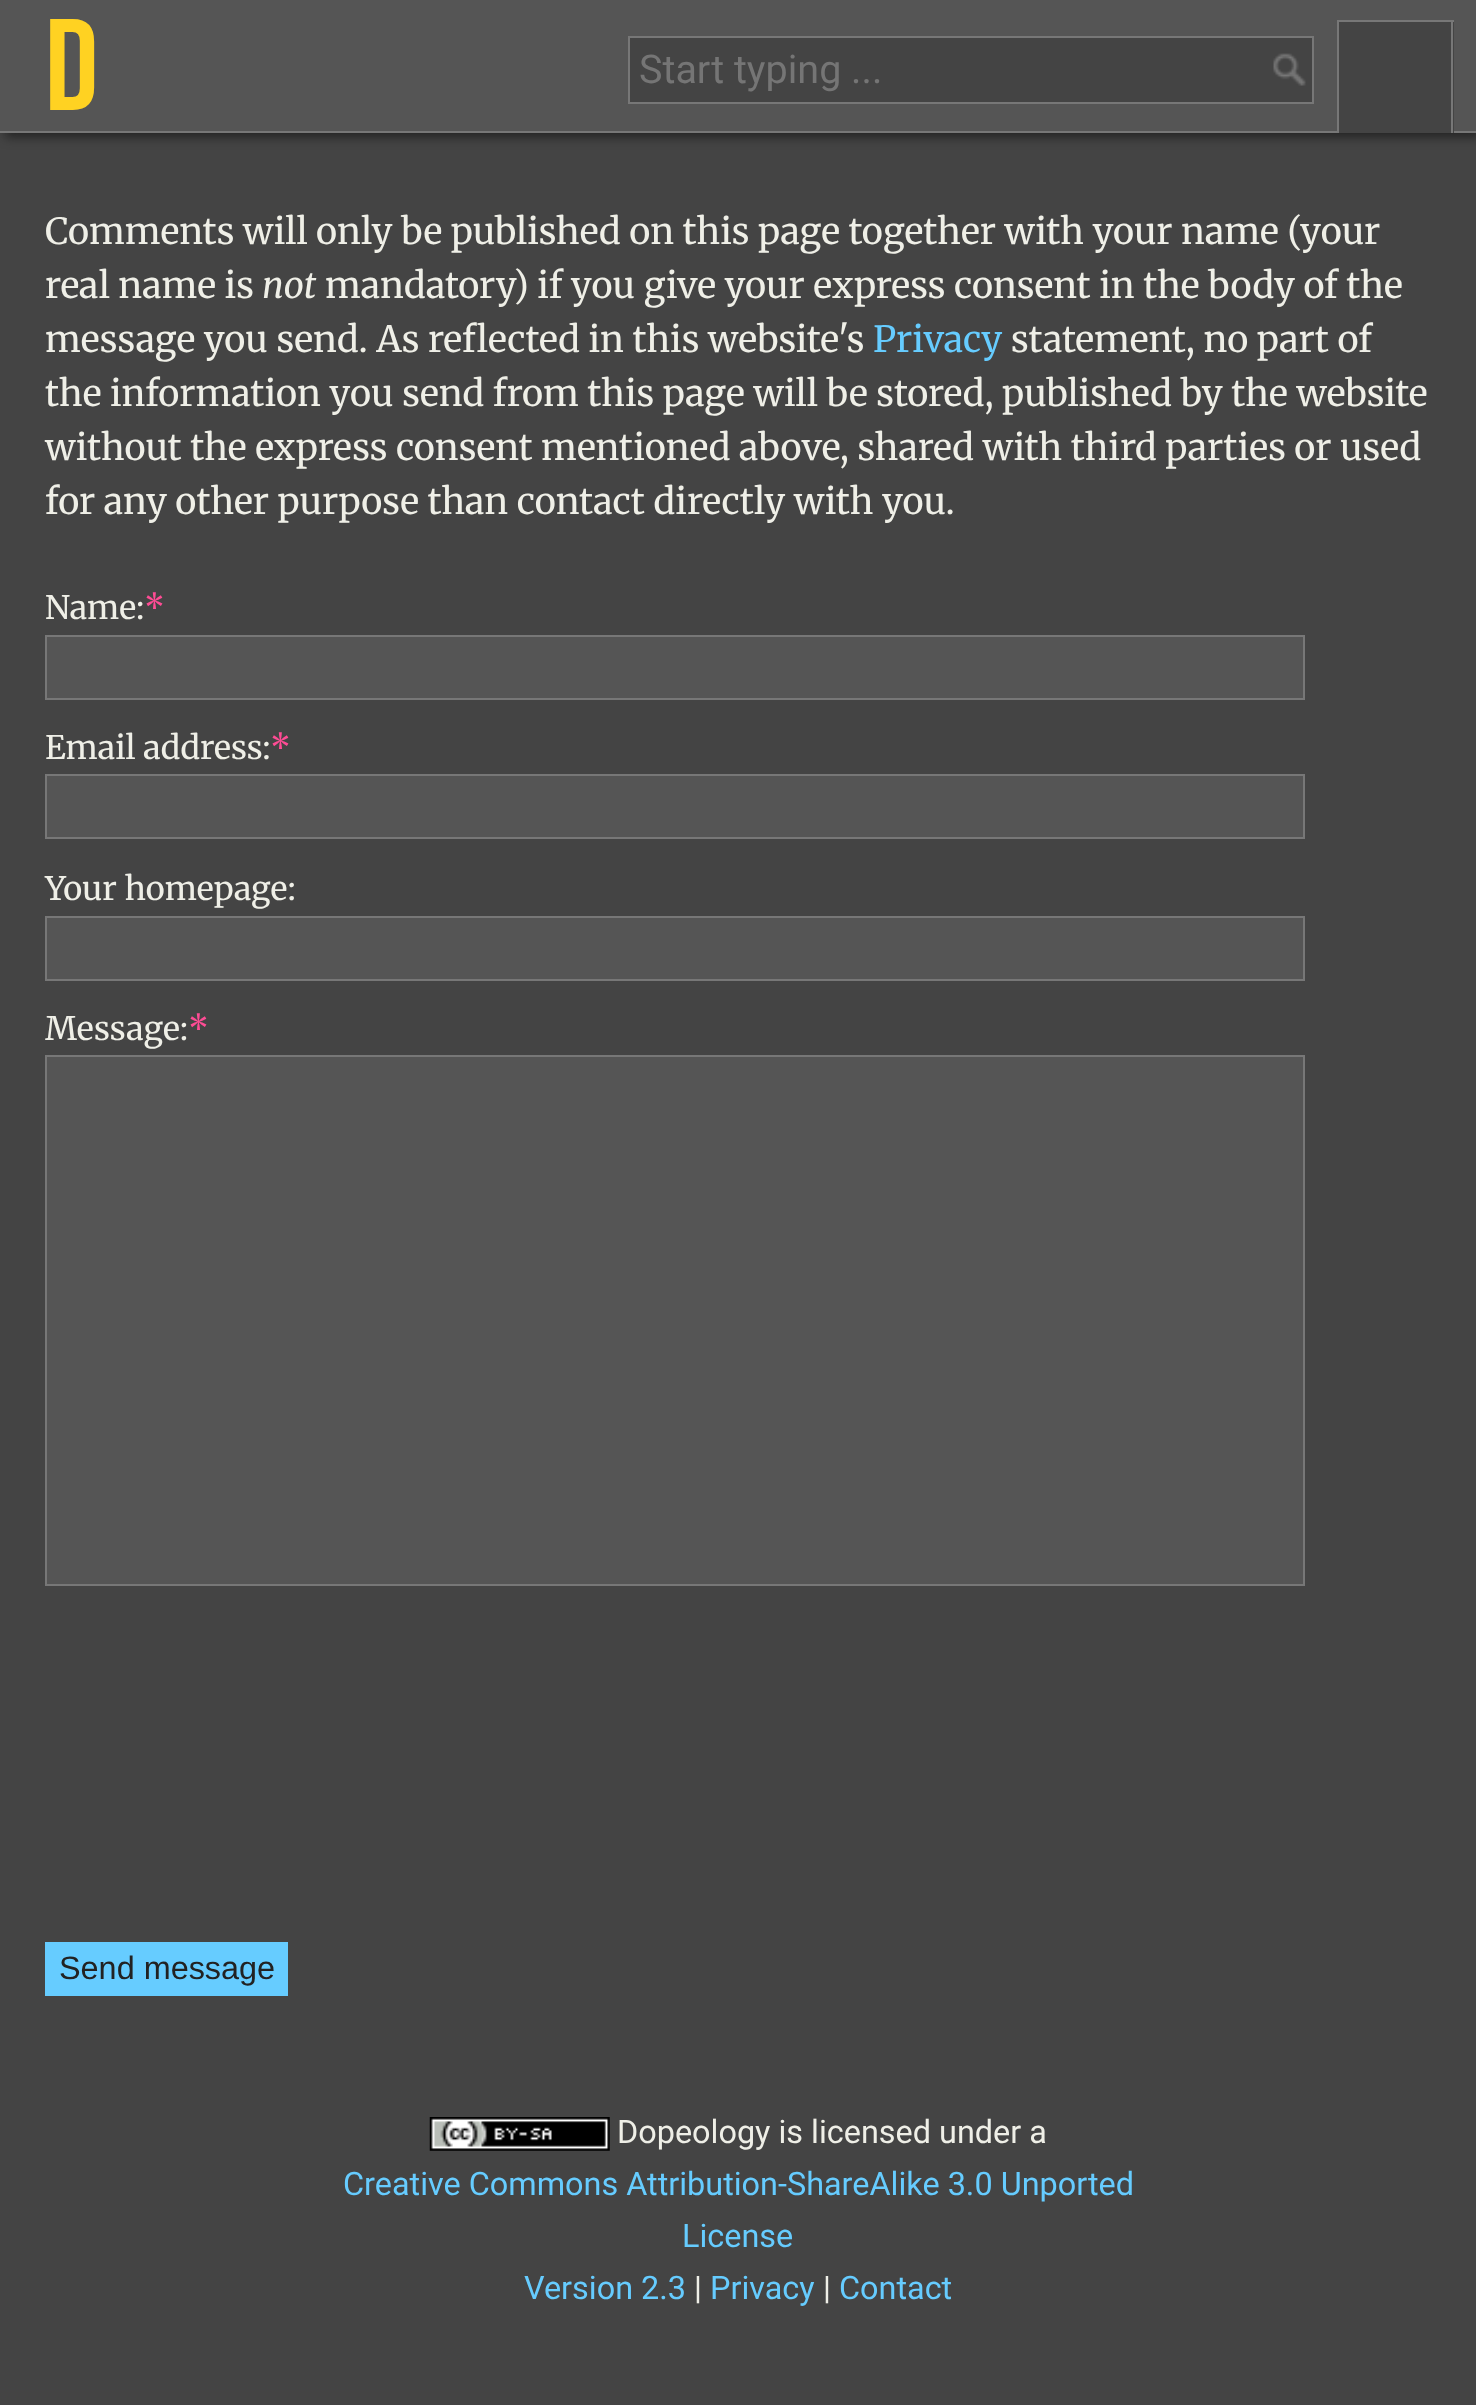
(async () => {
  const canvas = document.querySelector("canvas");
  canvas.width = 1476;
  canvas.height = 2405;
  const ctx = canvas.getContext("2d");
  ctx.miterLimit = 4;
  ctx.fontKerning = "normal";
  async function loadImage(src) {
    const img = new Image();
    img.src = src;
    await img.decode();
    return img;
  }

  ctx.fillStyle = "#444444";
  ctx.fillRect(0, 0, 1476, 2405);
  ctx.fillStyle = "#222222";
  ctx.filter = "blur(5.5px)";
  ctx.beginPath();
  ctx.rect(5, 5, 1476, 132);
  ctx.fill();
  ctx.filter = "none";
  for (const [x, y, w, h, color] of [
    [0, 0, 1476, 131, "#555555"],
    [0, 131, 1476, 2, "#777777"],
    [1339, 22, 115, 111, "#444444"],
    [1337, 20, 117, 2, "#777777"],
    [1451, 20, 2, 113, "#777777"],
    [1337, 20, 2, 113, "#777777"],
    [630, 38, 682, 64, "#444444"],
  ]) {
    ctx.fillStyle = color;
    ctx.fillRect(x, y, w, h);
  }
  ctx.drawImage(await loadImage("img/1.png"), 1273, 53, 33, 33);
  ctx.strokeStyle = "#777777";
  ctx.lineWidth = 2;
  ctx.strokeRect(629, 37, 684, 66);
  ctx.fillStyle = "#555555";
  ctx.beginPath();
  ctx.rect(46, 636, 1258, 63);
  ctx.fill();
  ctx.stroke();
  ctx.beginPath();
  ctx.rect(46, 775, 1258, 63);
  ctx.fill();
  ctx.stroke();
  ctx.beginPath();
  ctx.rect(46, 917, 1258, 63);
  ctx.fill();
  ctx.stroke();
  ctx.beginPath();
  ctx.rect(46, 1056, 1258, 529);
  ctx.fill();
  ctx.stroke();
  ctx.fillStyle = "#66ccff";
  ctx.fillRect(45, 1942, 243, 54);
  ctx.drawImage(await loadImage("img/2.png"), 429, 2117, 181, 34);
  ctx.font = "130px Bebas Neue";
  ctx.fillStyle = "#ffd222";
  ctx.fillText("D", 45, 110);
  ctx.font = "39.5px Roboto";
  ctx.fillStyle = "#757575";
  ctx.fillText("Start typing ...", 639, 83);
  ctx.font = "300 36px Merriweather";
  ctx.fillStyle = "#efefe7";
  ctx.fillText("Comments will only be published on this page together with your name (your", 45, 244);
  ctx.fillText("real name is", 45, 298);
  ctx.font = "italic 300 36px Merriweather";
  ctx.fillText("not", 262, 298);
  ctx.font = "300 36px Merriweather";
  ctx.fillText("mandatory) if you give your express consent in the body of the", 325, 298);
  ctx.fillText("message you send. As reflected in this website's", 45, 352);
  ctx.fillStyle = "#66ccff";
  ctx.fillText("Privacy", 873, 352);
  ctx.fillStyle = "#efefe7";
  for (const [text, x, y] of [
    ["statement, no part of", 1011, 352],
    ["the information you send from this page will be stored, published by the website", 45, 406],
    ["without the express consent mentioned above, shared with third parties or used", 45, 460],
    ["for any other purpose than contact directly with you.", 45, 514],
  ]) {
    ctx.fillText(text, x, y);
  }
  ctx.font = "300 32.4px Merriweather";
  ctx.fillText("Name:", 45, 619);
  ctx.fillStyle = "#ff4c95";
  ctx.fillText("*", 144, 619);
  ctx.fillStyle = "#efefe7";
  ctx.fillText("Email address:", 45, 759);
  ctx.fillStyle = "#ff4c95";
  ctx.fillText("*", 270, 759);
  ctx.fillStyle = "#efefe7";
  ctx.fillText("Your homepage:", 45, 900);
  ctx.fillText("Message:", 45, 1040);
  ctx.fillStyle = "#ff4c95";
  ctx.fillText("*", 188, 1040);
  ctx.font = "32.4px Liberation Sans";
  ctx.fillStyle = "#222222";
  ctx.fillText("Send message", 59, 1979);
  ctx.font = "32.4px Roboto";
  ctx.fillStyle = "#efefe7";
  ctx.fillText("Dopeology is licensed under a", 617, 2143);
  ctx.fillStyle = "#66ccff";
  for (const [text, x, y] of [
    ["Creative Commons Attribution-ShareAlike 3.0 Unported", 343, 2195],
    ["License", 682, 2247],
    ["Version 2.3", 524, 2299],
  ]) {
    ctx.fillText(text, x, y);
  }
  ctx.fillStyle = "#efefe7";
  ctx.fillText("|", 694, 2299);
  ctx.fillStyle = "#66ccff";
  ctx.fillText("Privacy", 710, 2299);
  ctx.fillStyle = "#efefe7";
  ctx.fillText("|", 823, 2299);
  ctx.fillStyle = "#66ccff";
  ctx.fillText("Contact", 839, 2299);
})();
